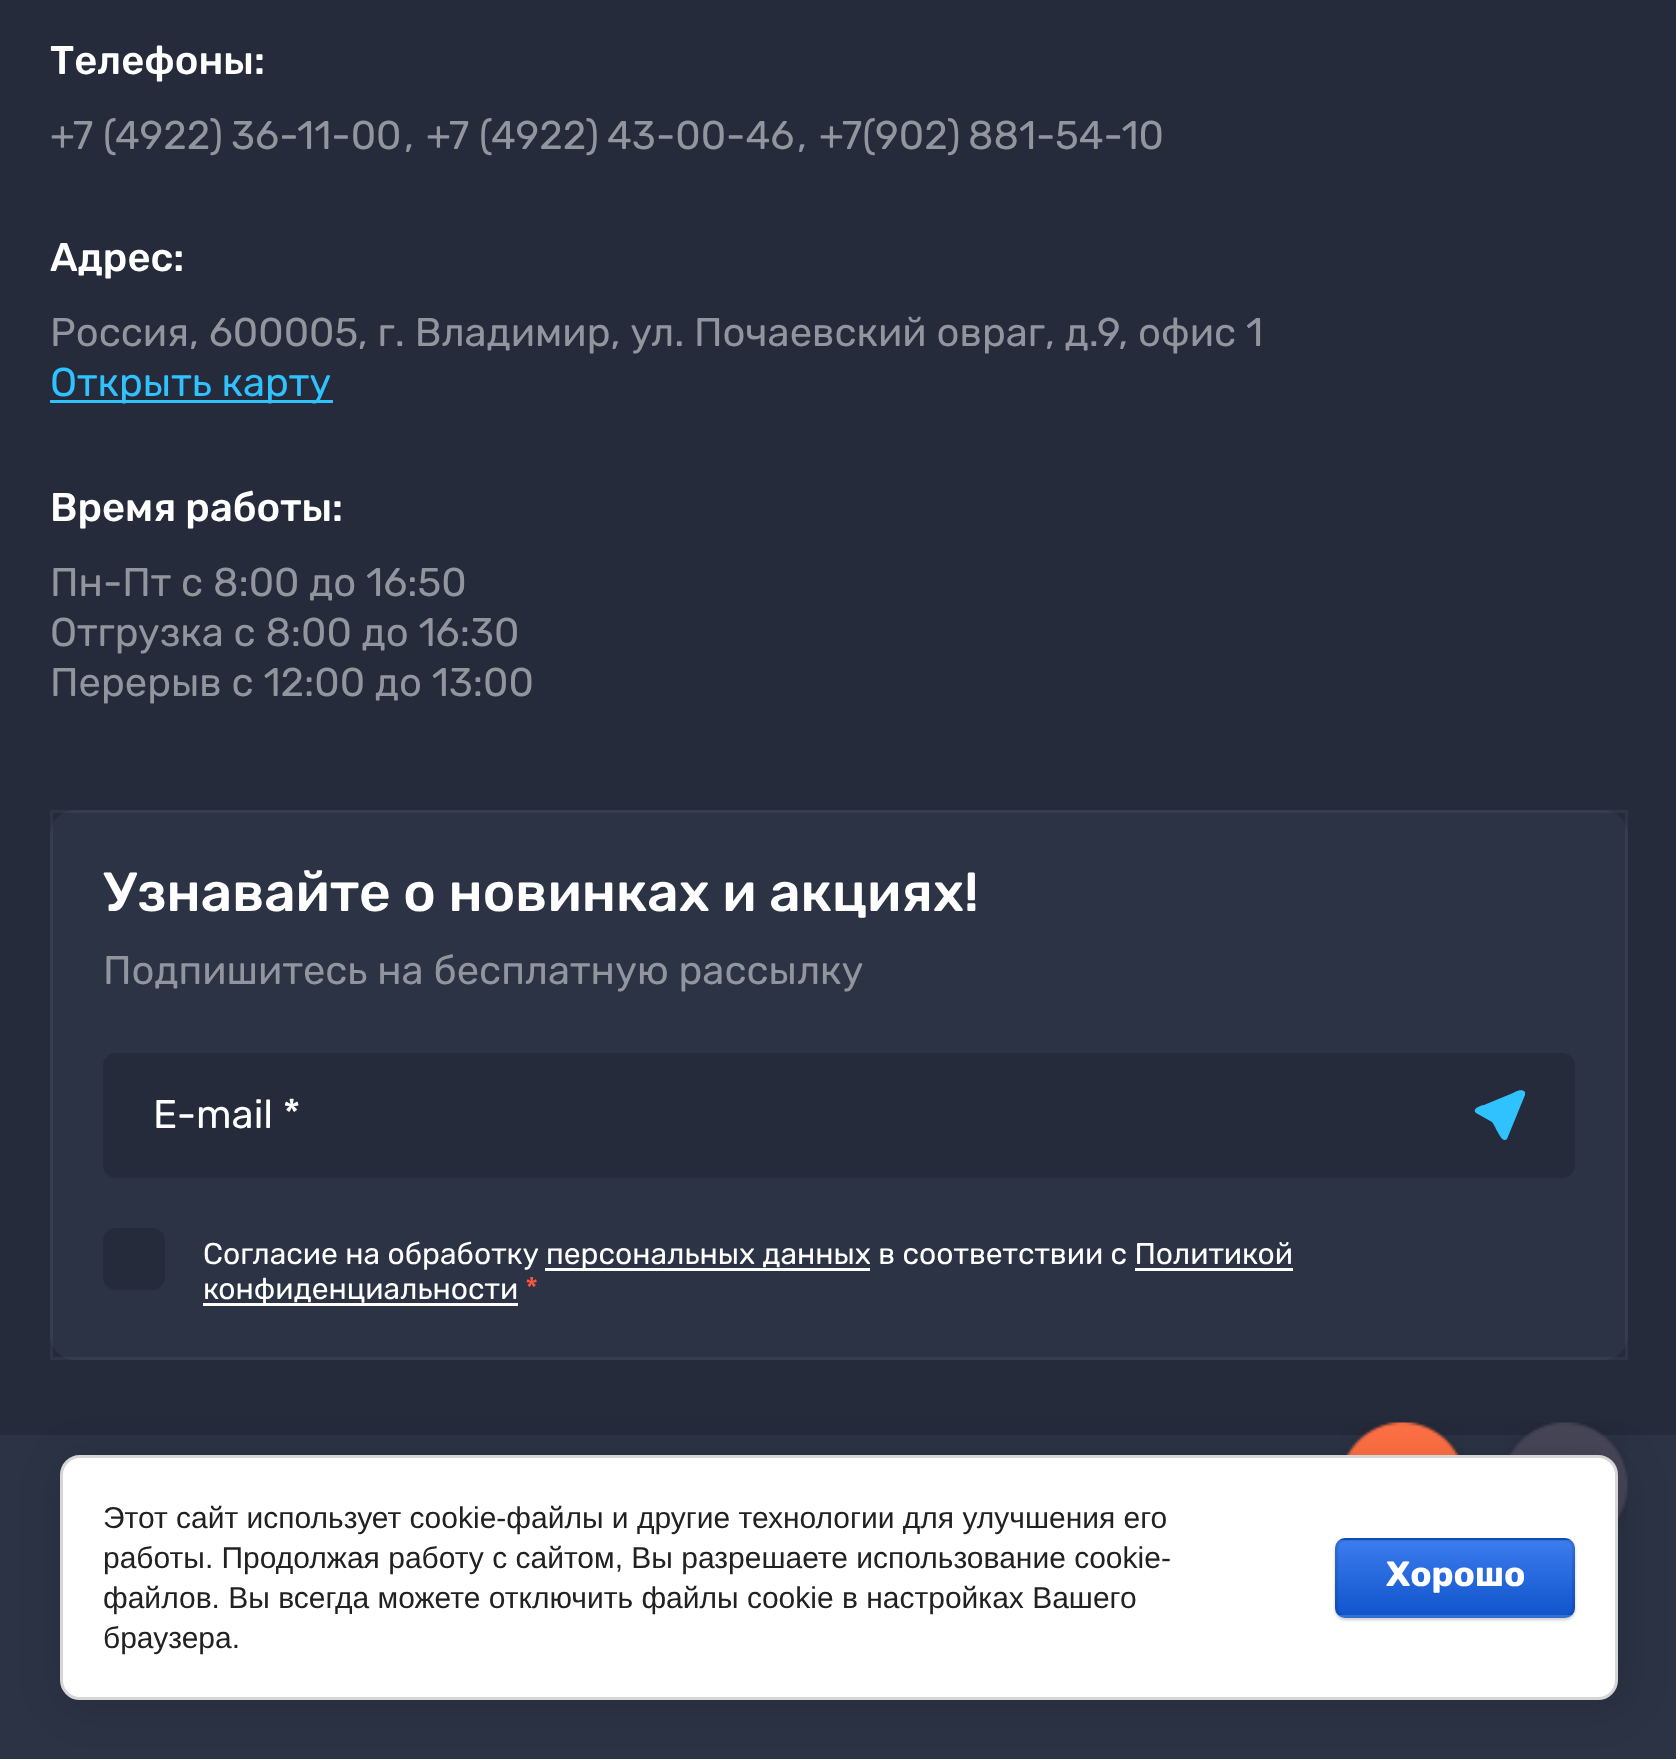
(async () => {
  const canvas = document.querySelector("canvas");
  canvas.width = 1676;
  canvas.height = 1759;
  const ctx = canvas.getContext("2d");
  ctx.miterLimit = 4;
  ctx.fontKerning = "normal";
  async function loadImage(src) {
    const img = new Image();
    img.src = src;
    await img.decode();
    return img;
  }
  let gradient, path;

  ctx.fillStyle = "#252b3b";
  ctx.fillRect(0, 0, 1676, 1759);
  ctx.fillStyle = "#30c1ff";
  ctx.fillRect(50, 400, 283, 3);
  ctx.fillStyle = "#2c3345";
  ctx.beginPath();
  ctx.roundRect(50, 810, 1578, 550, 25);
  ctx.fill();
  ctx.strokeStyle = "rgba(255, 255, 255, 0.05)";
  ctx.lineWidth = 3;
  ctx.strokeRect(51.5, 811.5, 1575, 547);
  ctx.fillStyle = "#252b3b";
  ctx.beginPath();
  ctx.roundRect(103, 1053, 1472, 125, 13);
  ctx.fill();
  ctx.fillStyle = "#30c1ff";
  path = new Path2D("M1525 1095L1507 1139C1502 1145 1495 1125 1492 1122L1476 1113C1471 1108 1483 1105 1484 1105L1513 1093C1515 1092 1522 1088 1525 1092Z");
  ctx.fill(path);
  ctx.fillStyle = "#252b3b";
  ctx.beginPath();
  ctx.roundRect(103, 1228, 62, 62, 13);
  ctx.fill();
  for (const [x, y, w, h, color] of [
    [545, 1268, 325, 3, "#ffffff"],
    [1135, 1268, 158, 3, "#ffffff"],
    [203, 1303, 315, 3, "#ffffff"],
    [0, 1435, 1676, 324, "#2c3345"],
  ]) {
    ctx.fillStyle = color;
    ctx.fillRect(x, y, w, h);
  }
  ctx.drawImage(await loadImage("img/1.png"), 1340, 1422, 125, 33);
  ctx.drawImage(await loadImage("img/2.png"), 1503, 1422, 125, 107);
  ctx.fillStyle = "rgba(0, 0, 0, 0.14)";
  ctx.filter = "blur(22.5px)";
  ctx.beginPath();
  ctx.roundRect(65, 1460, 1558, 245, 20);
  ctx.fill();
  ctx.filter = "none";
  ctx.fillStyle = "#ffffff";
  ctx.beginPath();
  ctx.roundRect(61.5, 1456.5, 1555, 242, 18.5);
  ctx.fill();
  ctx.strokeStyle = "#d6d6d6";
  ctx.stroke();
  ctx.fillStyle = "rgba(0, 0, 0, 0.2)";
  ctx.filter = "blur(1.5px)";
  ctx.beginPath();
  ctx.roundRect(1335, 1540, 240, 80, 10);
  ctx.fill();
  ctx.filter = "none";
  ctx.save();
  ctx.beginPath();
  ctx.roundRect(1335, 1538, 240, 80, 10);
  ctx.clip();
  gradient = ctx.createLinearGradient(1455, 1465, 1455, 1540);
  gradient.addColorStop(0, "#3b7cef");
  gradient.addColorStop(1, "#1155cc");
  ctx.fillStyle = gradient;
  ctx.fillRect(1335, 1538, 240, 2);
  gradient = ctx.createLinearGradient(1455, 1540, 1455, 1615);
  gradient.addColorStop(0, "#3b7cef");
  gradient.addColorStop(1, "#1155cc");
  ctx.fillStyle = gradient;
  ctx.fillRect(1335, 1540, 240, 75);
  gradient = ctx.createLinearGradient(1455, 1615, 1455, 1690);
  gradient.addColorStop(0, "#3b7cef");
  gradient.addColorStop(1, "#1155cc");
  ctx.fillStyle = gradient;
  ctx.fillRect(1335, 1615, 240, 3);
  ctx.restore();
  ctx.beginPath();
  ctx.roundRect(1336.5, 1539.5, 237, 77, 8.5);
  ctx.strokeStyle = "rgba(0, 0, 0, 0.1)";
  ctx.stroke();
  ctx.font = "500 40px Rubik";
  ctx.fillStyle = "#ffffff";
  ctx.fillText("Телефоны:", 50, 74);
  ctx.font = "40px Rubik";
  ctx.fillStyle = "#92959d";
  for (const [text, x, y] of [
    ["+7 (4922)", 50, 149],
    ["36-11-00", 231, 149],
    [",", 404, 149],
    ["+7 (4922)", 426, 149],
    ["43-00-46", 607, 149],
    [",", 797, 149],
    ["+7(902)", 819, 149],
    ["881-54-10", 968, 149],
  ]) {
    ctx.fillText(text, x, y);
  }
  ctx.font = "500 40px Rubik";
  ctx.fillStyle = "#ffffff";
  ctx.fillText("Адрес:", 50, 271);
  ctx.font = "40px Rubik";
  ctx.fillStyle = "#92959d";
  ctx.fillText("Россия, 600005, г. Владимир, ул. Почаевский овраг, д.9, офис 1", 50, 346);
  ctx.fillStyle = "#30c1ff";
  ctx.fillText("Открыть карту", 50, 396);
  ctx.font = "500 40px Rubik";
  ctx.fillStyle = "#ffffff";
  ctx.fillText("Время работы:", 50, 521);
  ctx.font = "40px Rubik";
  ctx.fillStyle = "#92959d";
  for (const [text, x, y] of [
    ["Пн-Пт с 8:00 до 16:50", 50, 596],
    ["Отгрузка с 8:00 до 16:30", 50, 646],
    ["Перерыв с 12:00 до 13:00", 50, 696],
  ]) {
    ctx.fillText(text, x, y);
  }
  ctx.font = "500 55px Rubik";
  ctx.fillStyle = "#ffffff";
  ctx.fillText("Узнавайте о новинках и акциях!", 103, 911);
  ctx.font = "40px Rubik";
  ctx.fillStyle = "#92959d";
  ctx.fillText("Подпишитесь на бесплатную рассылку", 103, 984);
  ctx.fillStyle = "#ffffff";
  ctx.fillText("E-mail *", 153, 1128);
  ctx.font = "30px Rubik";
  for (const [text, x, y] of [
    ["Согласие на обработку", 203, 1264],
    ["персональных данных в соответствии с Политикой", 546, 1264],
    ["конфиденциальности", 203, 1299],
  ]) {
    ctx.fillText(text, x, y);
  }
  ctx.fillStyle = "#ff5640";
  ctx.fillText("*", 525, 1299);
  ctx.font = "30px Liberation Sans";
  ctx.fillStyle = "#212121";
  for (const [text, x, y] of [
    ["Этот сайт использует cookie-файлы и другие технологии для улучшения его", 103, 1528],
    ["работы. Продолжая работу с сайтом, Вы разрешаете использование cookie-", 103, 1568],
    ["файлов. Вы всегда можете отключить файлы cookie в настройках Вашего", 103, 1608],
    ["браузера.", 103, 1648],
  ]) {
    ctx.fillText(text, x, y);
  }
  ctx.font = "bold 35px Rubik";
  ctx.fillStyle = "#ffffff";
  ctx.fillText("Хорошо", 1386, 1586);
})();
